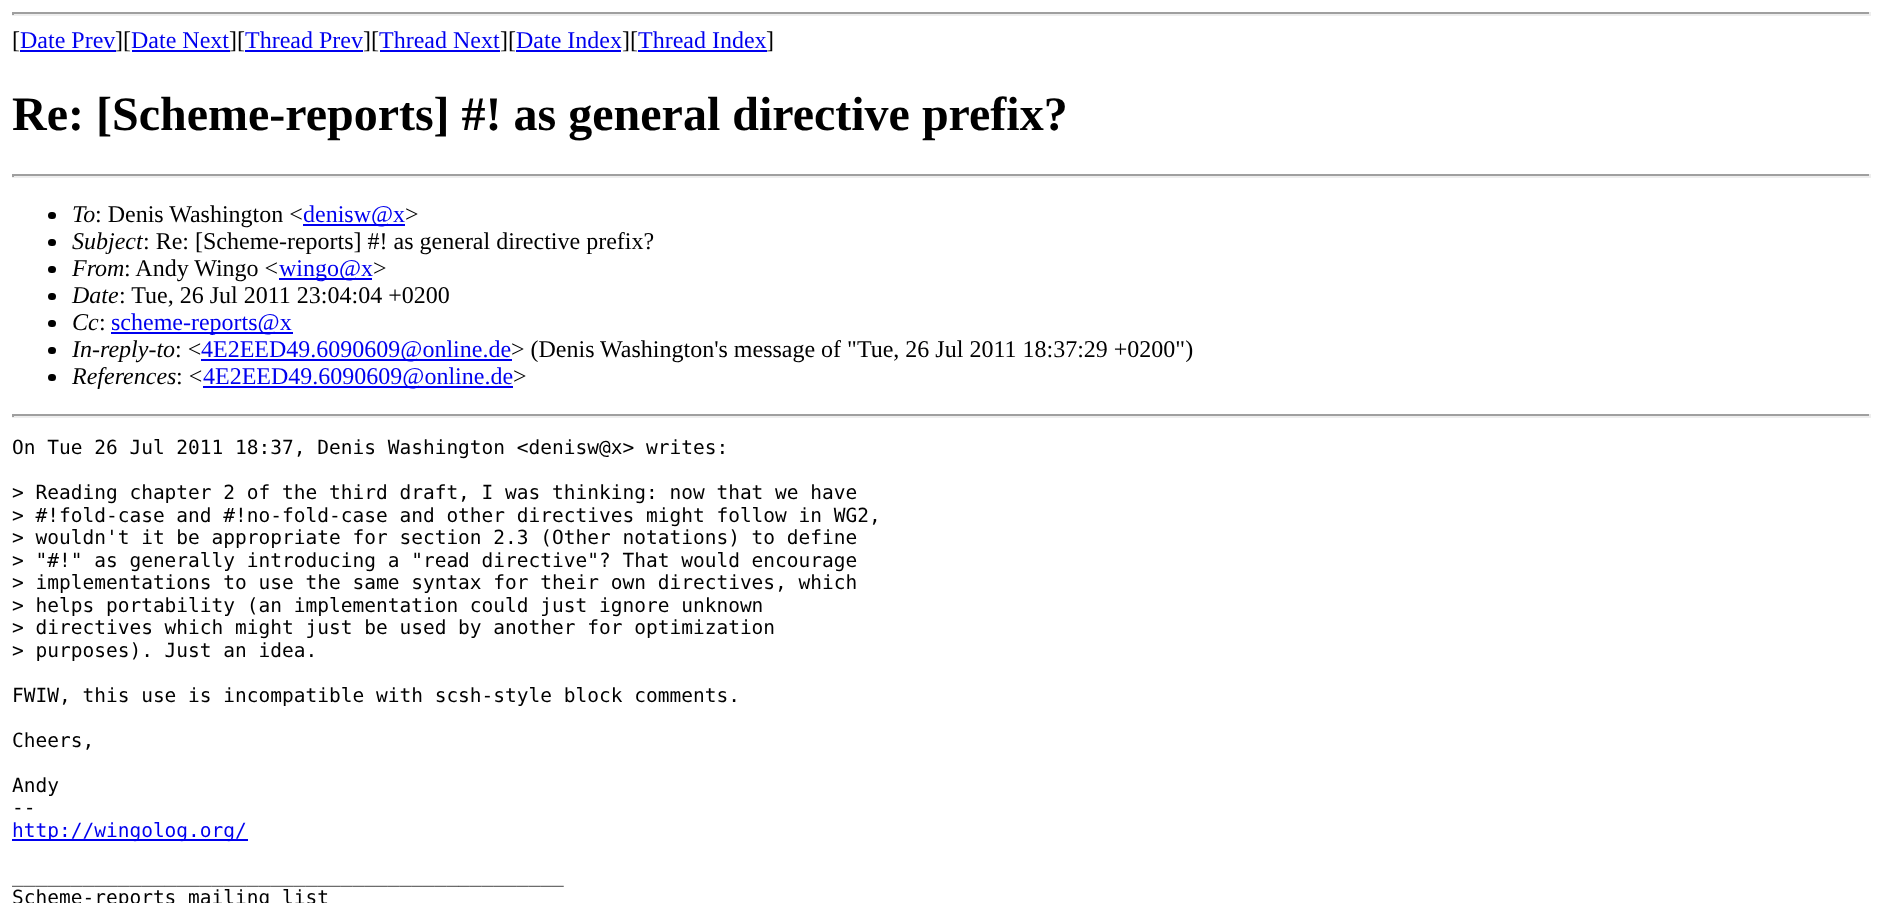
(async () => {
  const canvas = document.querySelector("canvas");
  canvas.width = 1882;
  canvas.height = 903;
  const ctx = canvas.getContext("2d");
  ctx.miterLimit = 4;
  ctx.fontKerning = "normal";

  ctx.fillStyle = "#ffffff";
  ctx.fillRect(0, 0, 1882, 903);
  for (const [x, y, w, h, color] of [
    [12, 12, 1859, 2, "#9f9f9f"],
    [1869, 12, 2, 3, "#eeeeee"],
    [12, 14, 1859, 2, "#eeeeee"],
    [12, 12, 2, 3, "#9f9f9f"],
    [20, 50, 96, 2, "#0000ee"],
    [132, 50, 98, 2, "#0000ee"],
    [245, 50, 118, 2, "#0000ee"],
    [380, 50, 120, 2, "#0000ee"],
    [516, 50, 105, 2, "#0000ee"],
    [638, 50, 129, 2, "#0000ee"],
    [12, 174, 1859, 2, "#9f9f9f"],
    [1869, 174, 2, 3, "#eeeeee"],
    [12, 176, 1859, 2, "#eeeeee"],
    [12, 174, 2, 3, "#9f9f9f"],
  ]) {
    ctx.fillStyle = color;
    ctx.fillRect(x, y, w, h);
  }
  ctx.fillStyle = "#000000";
  ctx.beginPath();
  ctx.roundRect(48, 212, 8, 7, 3.5);
  ctx.fill();
  ctx.fillStyle = "#0000ee";
  ctx.fillRect(303, 224, 102, 2);
  ctx.fillStyle = "#000000";
  ctx.beginPath();
  ctx.roundRect(48, 239, 8, 7, 3.5);
  ctx.fill();
  ctx.beginPath();
  ctx.roundRect(48, 266, 8, 7, 3.5);
  ctx.fill();
  ctx.fillStyle = "#0000ee";
  ctx.fillRect(279, 278, 93, 2);
  ctx.fillStyle = "#000000";
  ctx.beginPath();
  ctx.roundRect(48, 293, 8, 7, 3.5);
  ctx.fill();
  ctx.beginPath();
  ctx.roundRect(48, 320, 8, 7, 3.5);
  ctx.fill();
  ctx.fillStyle = "#0000ee";
  ctx.fillRect(111, 332, 182, 2);
  ctx.fillStyle = "#000000";
  ctx.beginPath();
  ctx.roundRect(48, 347, 8, 7, 3.5);
  ctx.fill();
  ctx.fillStyle = "#0000ee";
  ctx.fillRect(201, 359, 311, 2);
  ctx.fillStyle = "#000000";
  ctx.beginPath();
  ctx.roundRect(48, 374, 8, 7, 3.5);
  ctx.fill();
  for (const [x, y, w, h, color] of [
    [203, 386, 310, 2, "#0000ee"],
    [12, 414, 1859, 2, "#9f9f9f"],
    [1869, 414, 2, 3, "#eeeeee"],
    [12, 416, 1859, 2, "#eeeeee"],
    [12, 414, 2, 3, "#9f9f9f"],
    [12, 839, 236, 2, "#0000ee"],
  ]) {
    ctx.fillStyle = color;
    ctx.fillRect(x, y, w, h);
  }
  ctx.font = "24px Liberation Serif";
  ctx.fillStyle = "#000000";
  ctx.fillText("[", 12, 48);
  ctx.fillStyle = "#0000ee";
  ctx.fillText("Date Prev", 20, 48);
  ctx.fillStyle = "#000000";
  ctx.fillText("][", 115, 48);
  ctx.fillStyle = "#0000ee";
  ctx.fillText("Date Next", 131, 48);
  ctx.fillStyle = "#000000";
  ctx.fillText("][", 229, 48);
  ctx.fillStyle = "#0000ee";
  ctx.fillText("Thread Prev", 245, 48);
  ctx.fillStyle = "#000000";
  ctx.fillText("][", 363, 48);
  ctx.fillStyle = "#0000ee";
  ctx.fillText("Thread Next", 379, 48);
  ctx.fillStyle = "#000000";
  ctx.fillText("][", 500, 48);
  ctx.fillStyle = "#0000ee";
  ctx.fillText("Date Index", 516, 48);
  ctx.fillStyle = "#000000";
  ctx.fillText("][", 622, 48);
  ctx.fillStyle = "#0000ee";
  ctx.fillText("Thread Index", 638, 48);
  ctx.fillStyle = "#000000";
  ctx.fillText("]", 766, 48);
  ctx.font = "bold 48px Liberation Serif";
  ctx.fillText("Re: [Scheme-reports] #! as general directive prefix?", 12, 130);
  ctx.font = "italic 24px Liberation Serif";
  ctx.fillText("To", 72, 222);
  ctx.font = "24px Liberation Serif";
  ctx.fillText(": Denis Washington <", 95, 222);
  ctx.fillStyle = "#0000ee";
  ctx.fillText("denisw@x", 303, 222);
  ctx.fillStyle = "#000000";
  ctx.fillText(">", 405, 222);
  ctx.font = "italic 24px Liberation Serif";
  ctx.fillText("Subject", 72, 249);
  ctx.font = "24px Liberation Serif";
  ctx.fillText(": Re: [Scheme-reports] #! as general directive prefix?", 143, 249);
  ctx.font = "italic 24px Liberation Serif";
  ctx.fillText("From", 72, 276);
  ctx.font = "24px Liberation Serif";
  ctx.fillText(": Andy Wingo <", 124, 276);
  ctx.fillStyle = "#0000ee";
  ctx.fillText("wingo@x", 279, 276);
  ctx.fillStyle = "#000000";
  ctx.fillText(">", 373, 276);
  ctx.font = "italic 24px Liberation Serif";
  ctx.fillText("Date", 72, 303);
  ctx.font = "24px Liberation Serif";
  ctx.fillText(": Tue, 26 Jul 2011 23:04:04 +0200", 119, 303);
  ctx.font = "italic 24px Liberation Serif";
  ctx.fillText("Cc", 72, 330);
  ctx.font = "24px Liberation Serif";
  ctx.fillText(":", 99, 330);
  ctx.fillStyle = "#0000ee";
  ctx.fillText("scheme-reports@x", 111, 330);
  ctx.font = "italic 24px Liberation Serif";
  ctx.fillStyle = "#000000";
  ctx.fillText("In-reply-to", 72, 357);
  ctx.font = "24px Liberation Serif";
  ctx.fillText(": <", 175, 357);
  ctx.fillStyle = "#0000ee";
  ctx.fillText("4E2EED49.6090609@online.de", 201, 357);
  ctx.fillStyle = "#000000";
  ctx.fillText("> (Denis Washington's message of \"Tue, 26 Jul 2011 18:37:29 +0200\")", 511, 357);
  ctx.font = "italic 24px Liberation Serif";
  ctx.fillText("References", 72, 384);
  ctx.font = "24px Liberation Serif";
  ctx.fillText(": <", 176, 384);
  ctx.fillStyle = "#0000ee";
  ctx.fillText("4E2EED49.6090609@online.de", 203, 384);
  ctx.fillStyle = "#000000";
  ctx.fillText(">", 513, 384);
  ctx.font = "19.5px DejaVu Sans Mono";
  for (const [text, x, y] of [
    ["On Tue 26 Jul 2011 18:37, Denis Washington <denisw@x> writes:", 12, 454],
    ["> Reading chapter 2 of the third draft, I was thinking: now that we have", 12, 499],
    ["> #!fold-case and #!no-fold-case and other directives might follow in WG2,", 12, 522],
    ["> wouldn't it be appropriate for section 2.3 (Other notations) to define", 12, 544],
    ["> \"#!\" as generally introducing a \"read directive\"? That would encourage", 12, 567],
    ["> implementations to use the same syntax for their own directives, which", 12, 589],
    ["> helps portability (an implementation could just ignore unknown", 12, 612],
    ["> directives which might just be used by another for optimization", 12, 634],
    ["> purposes). Just an idea.", 12, 657],
    ["FWIW, this use is incompatible with scsh-style block comments.", 12, 702],
    ["Cheers,", 12, 747],
    ["Andy", 12, 792],
    ["--", 12, 814],
  ]) {
    ctx.fillText(text, x, y);
  }
  ctx.fillStyle = "#0000ee";
  ctx.fillText("http://wingolog.org/", 12, 837);
  ctx.fillStyle = "#000000";
  ctx.fillText("_______________________________________________", 12, 882);
  ctx.fillText("Scheme-reports mailing list", 12, 904);
})();
